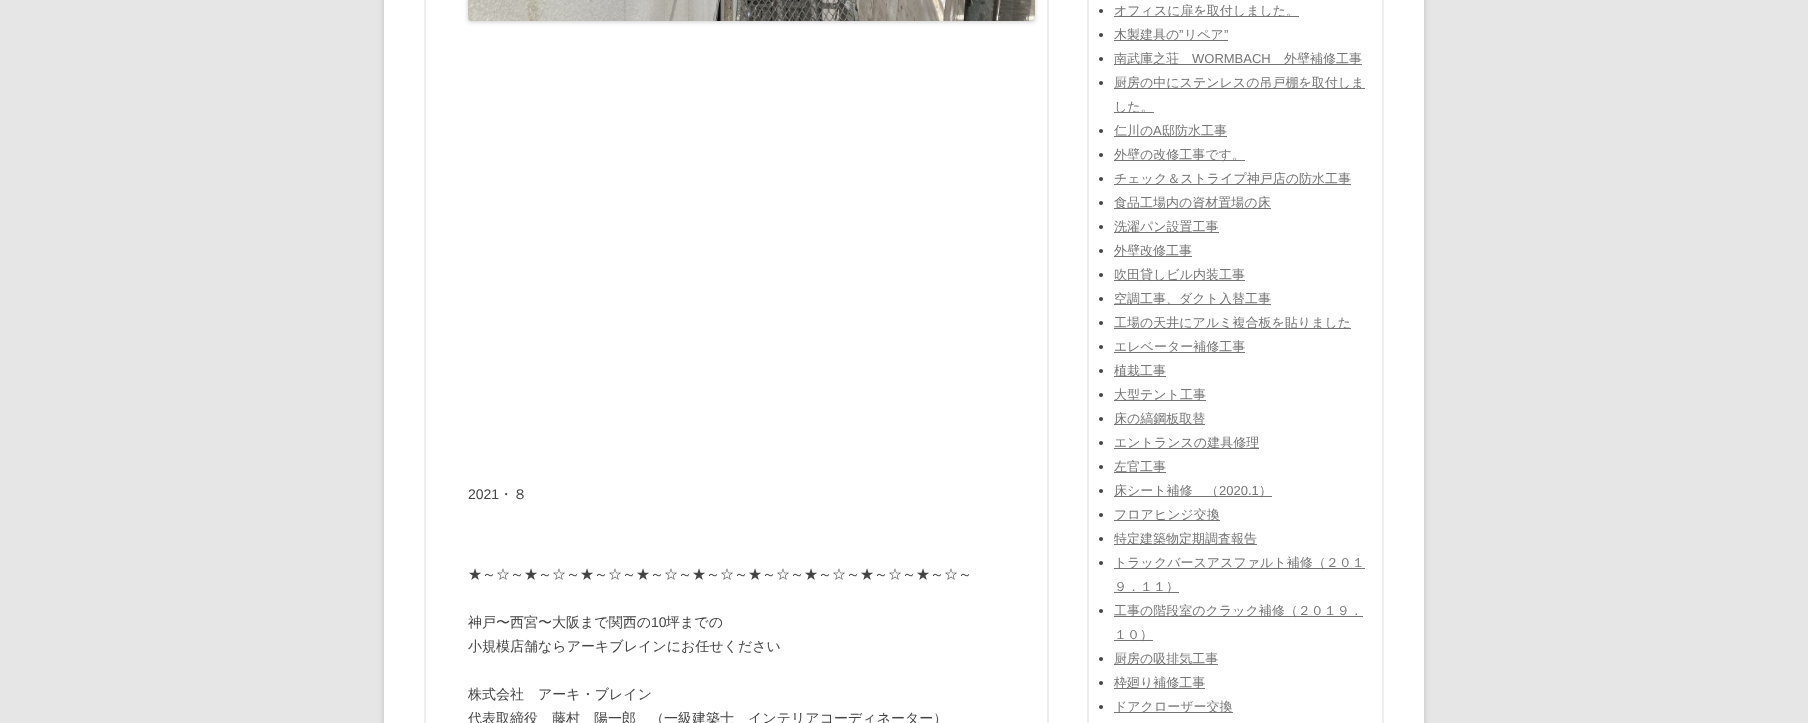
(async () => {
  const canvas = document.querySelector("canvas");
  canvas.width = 1808;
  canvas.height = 723;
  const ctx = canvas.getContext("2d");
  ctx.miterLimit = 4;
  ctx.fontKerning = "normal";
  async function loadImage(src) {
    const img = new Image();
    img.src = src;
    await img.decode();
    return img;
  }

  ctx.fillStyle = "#e6e6e6";
  ctx.fillRect(0, 0, 1808, 723);
  ctx.fillStyle = "rgba(100, 100, 100, 0.3)";
  ctx.filter = "blur(3px)";
  ctx.beginPath();
  ctx.rect(384, -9, 1040, 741);
  ctx.fill();
  ctx.filter = "none";
  ctx.fillStyle = "#ffffff";
  ctx.fillRect(384, 0, 1040, 723);
  ctx.strokeStyle = "#ededed";
  ctx.lineWidth = 2;
  ctx.strokeRect(425, -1, 623, 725);
  ctx.fillStyle = "rgba(0, 0, 0, 0.2)";
  ctx.filter = "blur(2px)";
  ctx.beginPath();
  ctx.roundRect(468, -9, 567, 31, 3);
  ctx.fill();
  ctx.filter = "none";
  ctx.drawImage(await loadImage("img/1.png"), 468, 0, 567, 21);
  ctx.strokeRect(1088, -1, 295, 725);
  ctx.fillStyle = "#444444";
  ctx.beginPath();
  ctx.arc(1101, 11, 2, 0, Math.PI * 2);
  ctx.fill();
  ctx.fillStyle = "#757575";
  ctx.fillRect(1114, 16, 185, 1);
  ctx.fillRect(1114, 40, 114, 1);
  ctx.fillStyle = "#444444";
  ctx.beginPath();
  ctx.arc(1101, 35, 2, 0, Math.PI * 2);
  ctx.fill();
  ctx.beginPath();
  ctx.arc(1101, 59, 2, 0, Math.PI * 2);
  ctx.fill();
  ctx.fillStyle = "#757575";
  ctx.fillRect(1114, 64, 248, 1);
  ctx.fillStyle = "#444444";
  ctx.beginPath();
  ctx.arc(1101, 83, 2, 0, Math.PI * 2);
  ctx.fill();
  ctx.fillStyle = "#757575";
  ctx.fillRect(1114, 88, 251, 1);
  ctx.fillRect(1114, 112, 40, 1);
  ctx.fillStyle = "#444444";
  ctx.beginPath();
  ctx.arc(1101, 131, 2, 0, Math.PI * 2);
  ctx.fill();
  ctx.fillStyle = "#757575";
  ctx.fillRect(1114, 136, 113, 1);
  ctx.fillStyle = "#444444";
  ctx.beginPath();
  ctx.arc(1101, 155, 2, 0, Math.PI * 2);
  ctx.fill();
  ctx.fillStyle = "#757575";
  ctx.fillRect(1114, 160, 131, 1);
  ctx.fillStyle = "#444444";
  ctx.beginPath();
  ctx.arc(1101, 179, 2, 0, Math.PI * 2);
  ctx.fill();
  ctx.fillStyle = "#757575";
  ctx.fillRect(1114, 184, 237, 1);
  ctx.fillStyle = "#444444";
  ctx.beginPath();
  ctx.arc(1101, 203, 2, 0, Math.PI * 2);
  ctx.fill();
  ctx.fillStyle = "#757575";
  ctx.fillRect(1114, 208, 157, 1);
  ctx.fillStyle = "#444444";
  ctx.beginPath();
  ctx.arc(1101, 227, 2, 0, Math.PI * 2);
  ctx.fill();
  ctx.fillStyle = "#757575";
  ctx.fillRect(1114, 232, 105, 1);
  ctx.fillStyle = "#444444";
  ctx.beginPath();
  ctx.arc(1101, 251, 2, 0, Math.PI * 2);
  ctx.fill();
  ctx.fillStyle = "#757575";
  ctx.fillRect(1114, 256, 78, 1);
  ctx.fillStyle = "#444444";
  ctx.beginPath();
  ctx.arc(1101, 275, 2, 0, Math.PI * 2);
  ctx.fill();
  ctx.fillStyle = "#757575";
  ctx.fillRect(1114, 280, 131, 1);
  ctx.fillStyle = "#444444";
  ctx.beginPath();
  ctx.arc(1101, 299, 2, 0, Math.PI * 2);
  ctx.fill();
  ctx.fillStyle = "#757575";
  ctx.fillRect(1114, 304, 157, 1);
  ctx.fillStyle = "#444444";
  ctx.beginPath();
  ctx.arc(1101, 323, 2, 0, Math.PI * 2);
  ctx.fill();
  ctx.fillStyle = "#757575";
  ctx.fillRect(1114, 328, 237, 1);
  ctx.fillStyle = "#444444";
  ctx.beginPath();
  ctx.arc(1101, 347, 2, 0, Math.PI * 2);
  ctx.fill();
  ctx.fillStyle = "#757575";
  ctx.fillRect(1114, 352, 131, 1);
  ctx.fillStyle = "#444444";
  ctx.beginPath();
  ctx.arc(1101, 371, 2, 0, Math.PI * 2);
  ctx.fill();
  ctx.fillStyle = "#757575";
  ctx.fillRect(1114, 376, 52, 1);
  ctx.fillStyle = "#444444";
  ctx.beginPath();
  ctx.arc(1101, 395, 2, 0, Math.PI * 2);
  ctx.fill();
  ctx.fillStyle = "#757575";
  ctx.fillRect(1114, 400, 92, 1);
  ctx.fillStyle = "#444444";
  ctx.beginPath();
  ctx.arc(1101, 419, 2, 0, Math.PI * 2);
  ctx.fill();
  ctx.fillStyle = "#757575";
  ctx.fillRect(1114, 424, 91, 1);
  ctx.fillStyle = "#444444";
  ctx.beginPath();
  ctx.arc(1101, 443, 2, 0, Math.PI * 2);
  ctx.fill();
  ctx.fillStyle = "#757575";
  ctx.fillRect(1114, 448, 145, 1);
  ctx.fillStyle = "#444444";
  ctx.beginPath();
  ctx.arc(1101, 467, 2, 0, Math.PI * 2);
  ctx.fill();
  ctx.fillStyle = "#757575";
  ctx.fillRect(1114, 472, 52, 1);
  ctx.fillStyle = "#444444";
  ctx.beginPath();
  ctx.arc(1101, 491, 2, 0, Math.PI * 2);
  ctx.fill();
  ctx.fillStyle = "#757575";
  ctx.fillRect(1114, 496, 158, 1);
  ctx.fillStyle = "#444444";
  ctx.beginPath();
  ctx.arc(1101, 515, 2, 0, Math.PI * 2);
  ctx.fill();
  ctx.fillStyle = "#757575";
  ctx.fillRect(1114, 520, 106, 1);
  ctx.fillStyle = "#444444";
  ctx.beginPath();
  ctx.arc(1101, 539, 2, 0, Math.PI * 2);
  ctx.fill();
  ctx.fillStyle = "#757575";
  ctx.fillRect(1114, 544, 143, 1);
  ctx.fillStyle = "#444444";
  ctx.beginPath();
  ctx.arc(1101, 563, 2, 0, Math.PI * 2);
  ctx.fill();
  ctx.fillStyle = "#757575";
  ctx.fillRect(1114, 568, 251, 1);
  ctx.fillRect(1114, 592, 65, 1);
  ctx.fillStyle = "#444444";
  ctx.beginPath();
  ctx.arc(1101, 611, 2, 0, Math.PI * 2);
  ctx.fill();
  ctx.fillStyle = "#757575";
  ctx.fillRect(1114, 616, 249, 1);
  ctx.fillRect(1114, 640, 39, 1);
  ctx.fillStyle = "#444444";
  ctx.beginPath();
  ctx.arc(1101, 659, 2, 0, Math.PI * 2);
  ctx.fill();
  ctx.fillStyle = "#757575";
  ctx.fillRect(1114, 664, 104, 1);
  ctx.fillStyle = "#444444";
  ctx.beginPath();
  ctx.arc(1101, 683, 2, 0, Math.PI * 2);
  ctx.fill();
  ctx.fillStyle = "#757575";
  ctx.fillRect(1114, 688, 91, 1);
  ctx.fillStyle = "#444444";
  ctx.beginPath();
  ctx.arc(1101, 707, 2, 0, Math.PI * 2);
  ctx.fill();
  ctx.fillStyle = "#757575";
  ctx.fillRect(1114, 712, 119, 1);
  ctx.font = "14px Liberation Sans";
  ctx.fillStyle = "#444444";
  ctx.fillText("2021", 468, 499);
  ctx.font = "500 14px WenQuanYi Zen Hei";
  for (const [text, x, y] of [
    ["・８", 499, 499],
    ["★～☆～★～☆～★～☆～★～☆～★～☆～★～☆～★～☆～★～☆～★～☆～", 468, 579],
    ["神戸〜西宮〜大阪まで関西の", 468, 627],
  ]) {
    ctx.fillText(text, x, y);
  }
  ctx.font = "14px Liberation Sans";
  ctx.fillText("10", 651, 627);
  ctx.font = "500 14px WenQuanYi Zen Hei";
  for (const [text, x, y] of [
    ["坪までの", 666, 627],
    ["小規模店舗ならアーキブレインにお任せください", 468, 651],
    ["株式会社　アーキ・ブレイン", 468, 699],
    ["代表取締役　藤村　陽一郎　（一級建築士　インテリアコーディネーター）", 468, 723],
  ]) {
    ctx.fillText(text, x, y);
  }
  ctx.font = "500 13px WenQuanYi Zen Hei";
  ctx.fillStyle = "#757575";
  ctx.fillText("オフィスに扉を取付しました。", 1114, 15);
  ctx.fillText("木製建具の", 1114, 39);
  ctx.font = "13px Liberation Sans";
  ctx.fillText("”", 1179, 39);
  ctx.font = "500 13px WenQuanYi Zen Hei";
  ctx.fillText("リペア", 1184, 39);
  ctx.font = "13px Liberation Sans";
  ctx.fillText("”", 1224, 39);
  ctx.font = "500 13px WenQuanYi Zen Hei";
  ctx.fillText("南武庫之荘", 1114, 63);
  ctx.font = "13px Liberation Sans";
  ctx.fillText("WORMBACH", 1192, 63);
  ctx.font = "500 13px WenQuanYi Zen Hei";
  for (const [text, x, y] of [
    ["外壁補修工事", 1284, 63],
    ["厨房の中にステンレスの吊戸棚を取付しま", 1114, 87],
    ["した。", 1114, 111],
    ["仁川の", 1114, 135],
  ]) {
    ctx.fillText(text, x, y);
  }
  ctx.font = "13px Liberation Sans";
  ctx.fillText("A", 1153, 135);
  ctx.font = "500 13px WenQuanYi Zen Hei";
  for (const [text, x, y] of [
    ["邸防水工事", 1162, 135],
    ["外壁の改修工事です。", 1114, 159],
    ["チェック＆ストライプ神戸店の防水工事", 1114, 183],
    ["食品工場内の資材置場の床", 1114, 207],
    ["洗濯パン設置工事", 1114, 231],
    ["外壁改修工事", 1114, 255],
    ["吹田貸しビル内装工事", 1114, 279],
    ["空調工事、ダクト入替工事", 1114, 303],
    ["工場の天井にアルミ複合板を貼りました", 1114, 327],
    ["エレベーター補修工事", 1114, 351],
    ["植栽工事", 1114, 375],
    ["大型テント工事", 1114, 399],
    ["床の縞鋼板取替", 1114, 423],
    ["エントランスの建具修理", 1114, 447],
    ["左官工事", 1114, 471],
    ["床シート補修　（", 1114, 495],
  ]) {
    ctx.fillText(text, x, y);
  }
  ctx.font = "13px Liberation Sans";
  ctx.fillText("2020.1", 1219, 495);
  ctx.font = "500 13px WenQuanYi Zen Hei";
  for (const [text, x, y] of [
    ["）", 1259, 495],
    ["フロアヒンジ交換", 1114, 519],
    ["特定建築物定期調査報告", 1114, 543],
    ["トラックバースアスファルト補修（２０１", 1114, 567],
    ["９．１１）", 1114, 591],
    ["工事の階段室のクラック補修（２０１９．", 1114, 615],
    ["１０）", 1114, 639],
    ["厨房の吸排気工事", 1114, 663],
    ["枠廻り補修工事", 1114, 687],
    ["ドアクローザー交換", 1114, 711],
  ]) {
    ctx.fillText(text, x, y);
  }
})();
